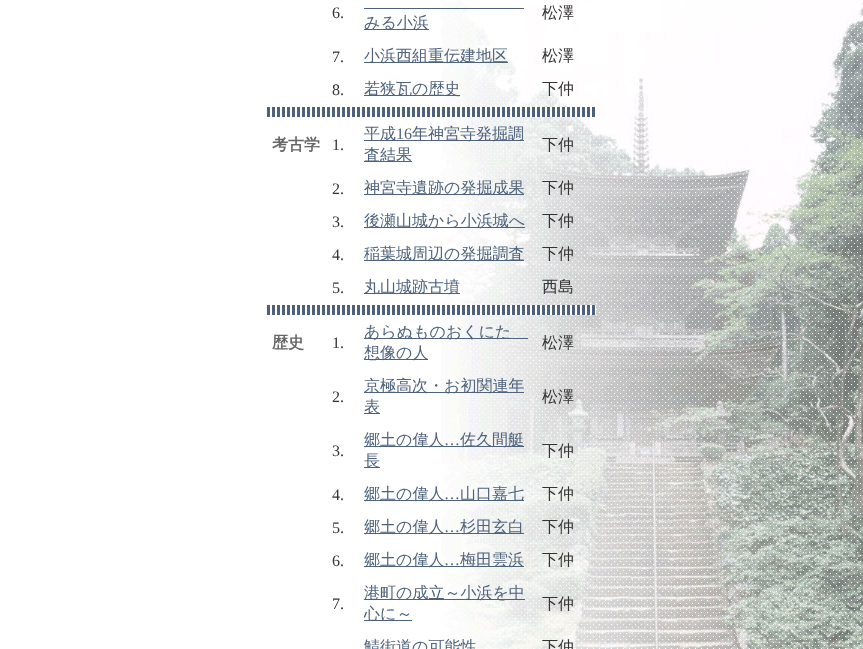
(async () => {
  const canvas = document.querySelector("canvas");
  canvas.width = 863;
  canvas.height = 649;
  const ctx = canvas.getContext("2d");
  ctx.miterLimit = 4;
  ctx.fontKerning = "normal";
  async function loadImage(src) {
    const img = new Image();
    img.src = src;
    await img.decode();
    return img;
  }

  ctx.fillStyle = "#ffffff";
  ctx.fillRect(0, 0, 863, 649);
  ctx.drawImage(await loadImage("img/1.png"), 441, 0, 422, 649);
  for (const [x, y, w, h, color] of [
    [364, 8, 160, 1, "#4e627b"],
    [364, 29, 65, 1, "#4e627b"],
    [364, 62, 144, 1, "#4e627b"],
    [364, 95, 96, 1, "#4e627b"],
    [267, 107, 328, 10, "#4e617b"],
  ]) {
    ctx.fillStyle = color;
    ctx.fillRect(x, y, w, h);
  }
  ctx.drawImage(await loadImage("img/2.png"), 270, 107, 326, 10);
  for (const [x, y, w, h, color] of [
    [364, 140, 160, 1, "#4e627b"],
    [364, 161, 48, 1, "#4e627b"],
    [364, 194, 160, 1, "#4e627b"],
    [364, 227, 161, 1, "#4e627b"],
    [364, 260, 160, 1, "#4e627b"],
    [364, 293, 96, 1, "#4e627b"],
    [267, 305, 328, 10, "#4e617b"],
  ]) {
    ctx.fillStyle = color;
    ctx.fillRect(x, y, w, h);
  }
  ctx.drawImage(await loadImage("img/2.png"), 270, 305, 326, 10);
  for (const [x, y, w, h, color] of [
    [364, 338, 164, 1, "#4e627b"],
    [364, 359, 64, 1, "#4e627b"],
    [364, 392, 160, 1, "#4e627b"],
    [364, 413, 16, 1, "#4e627b"],
    [364, 446, 160, 1, "#4e627b"],
    [364, 467, 16, 1, "#4e627b"],
    [364, 500, 160, 1, "#4e627b"],
    [364, 533, 160, 1, "#4e627b"],
    [364, 566, 160, 1, "#4e627b"],
    [364, 599, 161, 1, "#4e627b"],
    [364, 620, 48, 1, "#4e627b"],
  ]) {
    ctx.fillStyle = color;
    ctx.fillRect(x, y, w, h);
  }
  ctx.font = "16px Liberation Serif";
  ctx.fillStyle = "#333333";
  ctx.fillText("6.", 332, 18);
  ctx.font = "500 16px WenQuanYi Zen Hei";
  ctx.fillStyle = "#4e627b";
  ctx.fillText("みる小浜", 364, 28);
  ctx.fillStyle = "#333333";
  ctx.fillText("松澤", 542, 18);
  ctx.font = "16px Liberation Serif";
  ctx.fillText("7.", 332, 62);
  ctx.font = "500 16px WenQuanYi Zen Hei";
  ctx.fillStyle = "#4e627b";
  ctx.fillText("小浜西組重伝建地区", 364, 61);
  ctx.fillStyle = "#333333";
  ctx.fillText("松澤", 542, 61);
  ctx.font = "16px Liberation Serif";
  ctx.fillText("8.", 332, 95);
  ctx.font = "500 16px WenQuanYi Zen Hei";
  ctx.fillStyle = "#4e627b";
  ctx.fillText("若狭瓦の歴史", 364, 94);
  ctx.fillStyle = "#333333";
  ctx.fillText("下仲", 542, 94);
  ctx.font = "bold 16px WenQuanYi Zen Hei";
  ctx.fillStyle = "#666666";
  ctx.fillText("考古学", 272, 150);
  ctx.font = "16px Liberation Serif";
  ctx.fillStyle = "#333333";
  ctx.fillText("1.", 332, 150);
  ctx.font = "500 16px WenQuanYi Zen Hei";
  ctx.fillStyle = "#4e627b";
  ctx.fillText("平成", 364, 139);
  ctx.font = "16px Liberation Serif";
  ctx.fillText("16", 396, 139);
  ctx.font = "500 16px WenQuanYi Zen Hei";
  ctx.fillText("年神宮寺発掘調", 412, 139);
  ctx.fillText("査結果", 364, 160);
  ctx.fillStyle = "#333333";
  ctx.fillText("下仲", 542, 150);
  ctx.font = "16px Liberation Serif";
  ctx.fillText("2.", 332, 194);
  ctx.font = "500 16px WenQuanYi Zen Hei";
  ctx.fillStyle = "#4e627b";
  ctx.fillText("神宮寺遺跡の発掘成果", 364, 193);
  ctx.fillStyle = "#333333";
  ctx.fillText("下仲", 542, 193);
  ctx.font = "16px Liberation Serif";
  ctx.fillText("3.", 332, 227);
  ctx.font = "500 16px WenQuanYi Zen Hei";
  ctx.fillStyle = "#4e627b";
  ctx.fillText("後瀬山城から小浜城へ", 364, 226);
  ctx.fillStyle = "#333333";
  ctx.fillText("下仲", 542, 226);
  ctx.font = "16px Liberation Serif";
  ctx.fillText("4.", 332, 260);
  ctx.font = "500 16px WenQuanYi Zen Hei";
  ctx.fillStyle = "#4e627b";
  ctx.fillText("稲葉城周辺の発掘調査", 364, 259);
  ctx.fillStyle = "#333333";
  ctx.fillText("下仲", 542, 259);
  ctx.font = "16px Liberation Serif";
  ctx.fillText("5.", 332, 293);
  ctx.font = "500 16px WenQuanYi Zen Hei";
  ctx.fillStyle = "#4e627b";
  ctx.fillText("丸山城跡古墳", 364, 292);
  ctx.fillStyle = "#333333";
  ctx.fillText("西島", 542, 292);
  ctx.font = "bold 16px WenQuanYi Zen Hei";
  ctx.fillStyle = "#666666";
  ctx.fillText("歴史", 272, 348);
  ctx.font = "16px Liberation Serif";
  ctx.fillStyle = "#333333";
  ctx.fillText("1.", 332, 348);
  ctx.font = "500 16px WenQuanYi Zen Hei";
  ctx.fillStyle = "#4e627b";
  ctx.fillText("あらぬものおくにたゞ", 364, 337);
  ctx.fillText("想像の人", 364, 358);
  ctx.fillStyle = "#333333";
  ctx.fillText("松澤", 542, 348);
  ctx.font = "16px Liberation Serif";
  ctx.fillText("2.", 332, 402);
  ctx.font = "500 16px WenQuanYi Zen Hei";
  ctx.fillStyle = "#4e627b";
  ctx.fillText("京極高次・お初関連年", 364, 391);
  ctx.fillText("表", 364, 412);
  ctx.fillStyle = "#333333";
  ctx.fillText("松澤", 542, 402);
  ctx.font = "16px Liberation Serif";
  ctx.fillText("3.", 332, 456);
  ctx.font = "500 16px WenQuanYi Zen Hei";
  ctx.fillStyle = "#4e627b";
  ctx.fillText("郷土の偉人", 364, 445);
  ctx.font = "16px Liberation Serif";
  ctx.fillText("…", 444, 445);
  ctx.font = "500 16px WenQuanYi Zen Hei";
  ctx.fillText("佐久間艇", 460, 445);
  ctx.fillText("長", 364, 466);
  ctx.fillStyle = "#333333";
  ctx.fillText("下仲", 542, 456);
  ctx.font = "16px Liberation Serif";
  ctx.fillText("4.", 332, 500);
  ctx.font = "500 16px WenQuanYi Zen Hei";
  ctx.fillStyle = "#4e627b";
  ctx.fillText("郷土の偉人", 364, 499);
  ctx.font = "16px Liberation Serif";
  ctx.fillText("…", 444, 499);
  ctx.font = "500 16px WenQuanYi Zen Hei";
  ctx.fillText("山口嘉七", 460, 499);
  ctx.fillStyle = "#333333";
  ctx.fillText("下仲", 542, 499);
  ctx.font = "16px Liberation Serif";
  ctx.fillText("5.", 332, 533);
  ctx.font = "500 16px WenQuanYi Zen Hei";
  ctx.fillStyle = "#4e627b";
  ctx.fillText("郷土の偉人", 364, 532);
  ctx.font = "16px Liberation Serif";
  ctx.fillText("…", 444, 532);
  ctx.font = "500 16px WenQuanYi Zen Hei";
  ctx.fillText("杉田玄白", 460, 532);
  ctx.fillStyle = "#333333";
  ctx.fillText("下仲", 542, 532);
  ctx.font = "16px Liberation Serif";
  ctx.fillText("6.", 332, 566);
  ctx.font = "500 16px WenQuanYi Zen Hei";
  ctx.fillStyle = "#4e627b";
  ctx.fillText("郷土の偉人", 364, 565);
  ctx.font = "16px Liberation Serif";
  ctx.fillText("…", 444, 565);
  ctx.font = "500 16px WenQuanYi Zen Hei";
  ctx.fillText("梅田雲浜", 460, 565);
  ctx.fillStyle = "#333333";
  ctx.fillText("下仲", 542, 565);
  ctx.font = "16px Liberation Serif";
  ctx.fillText("7.", 332, 609);
  ctx.font = "500 16px WenQuanYi Zen Hei";
  ctx.fillStyle = "#4e627b";
  ctx.fillText("港町の成立～小浜を中", 364, 598);
  ctx.fillText("心に～", 364, 619);
  ctx.fillStyle = "#333333";
  ctx.fillText("下仲", 542, 609);
  ctx.fillStyle = "#4e627b";
  ctx.fillText("鯖街道の可能性", 364, 652);
  ctx.fillStyle = "#333333";
  ctx.fillText("下仲", 542, 652);
})();
